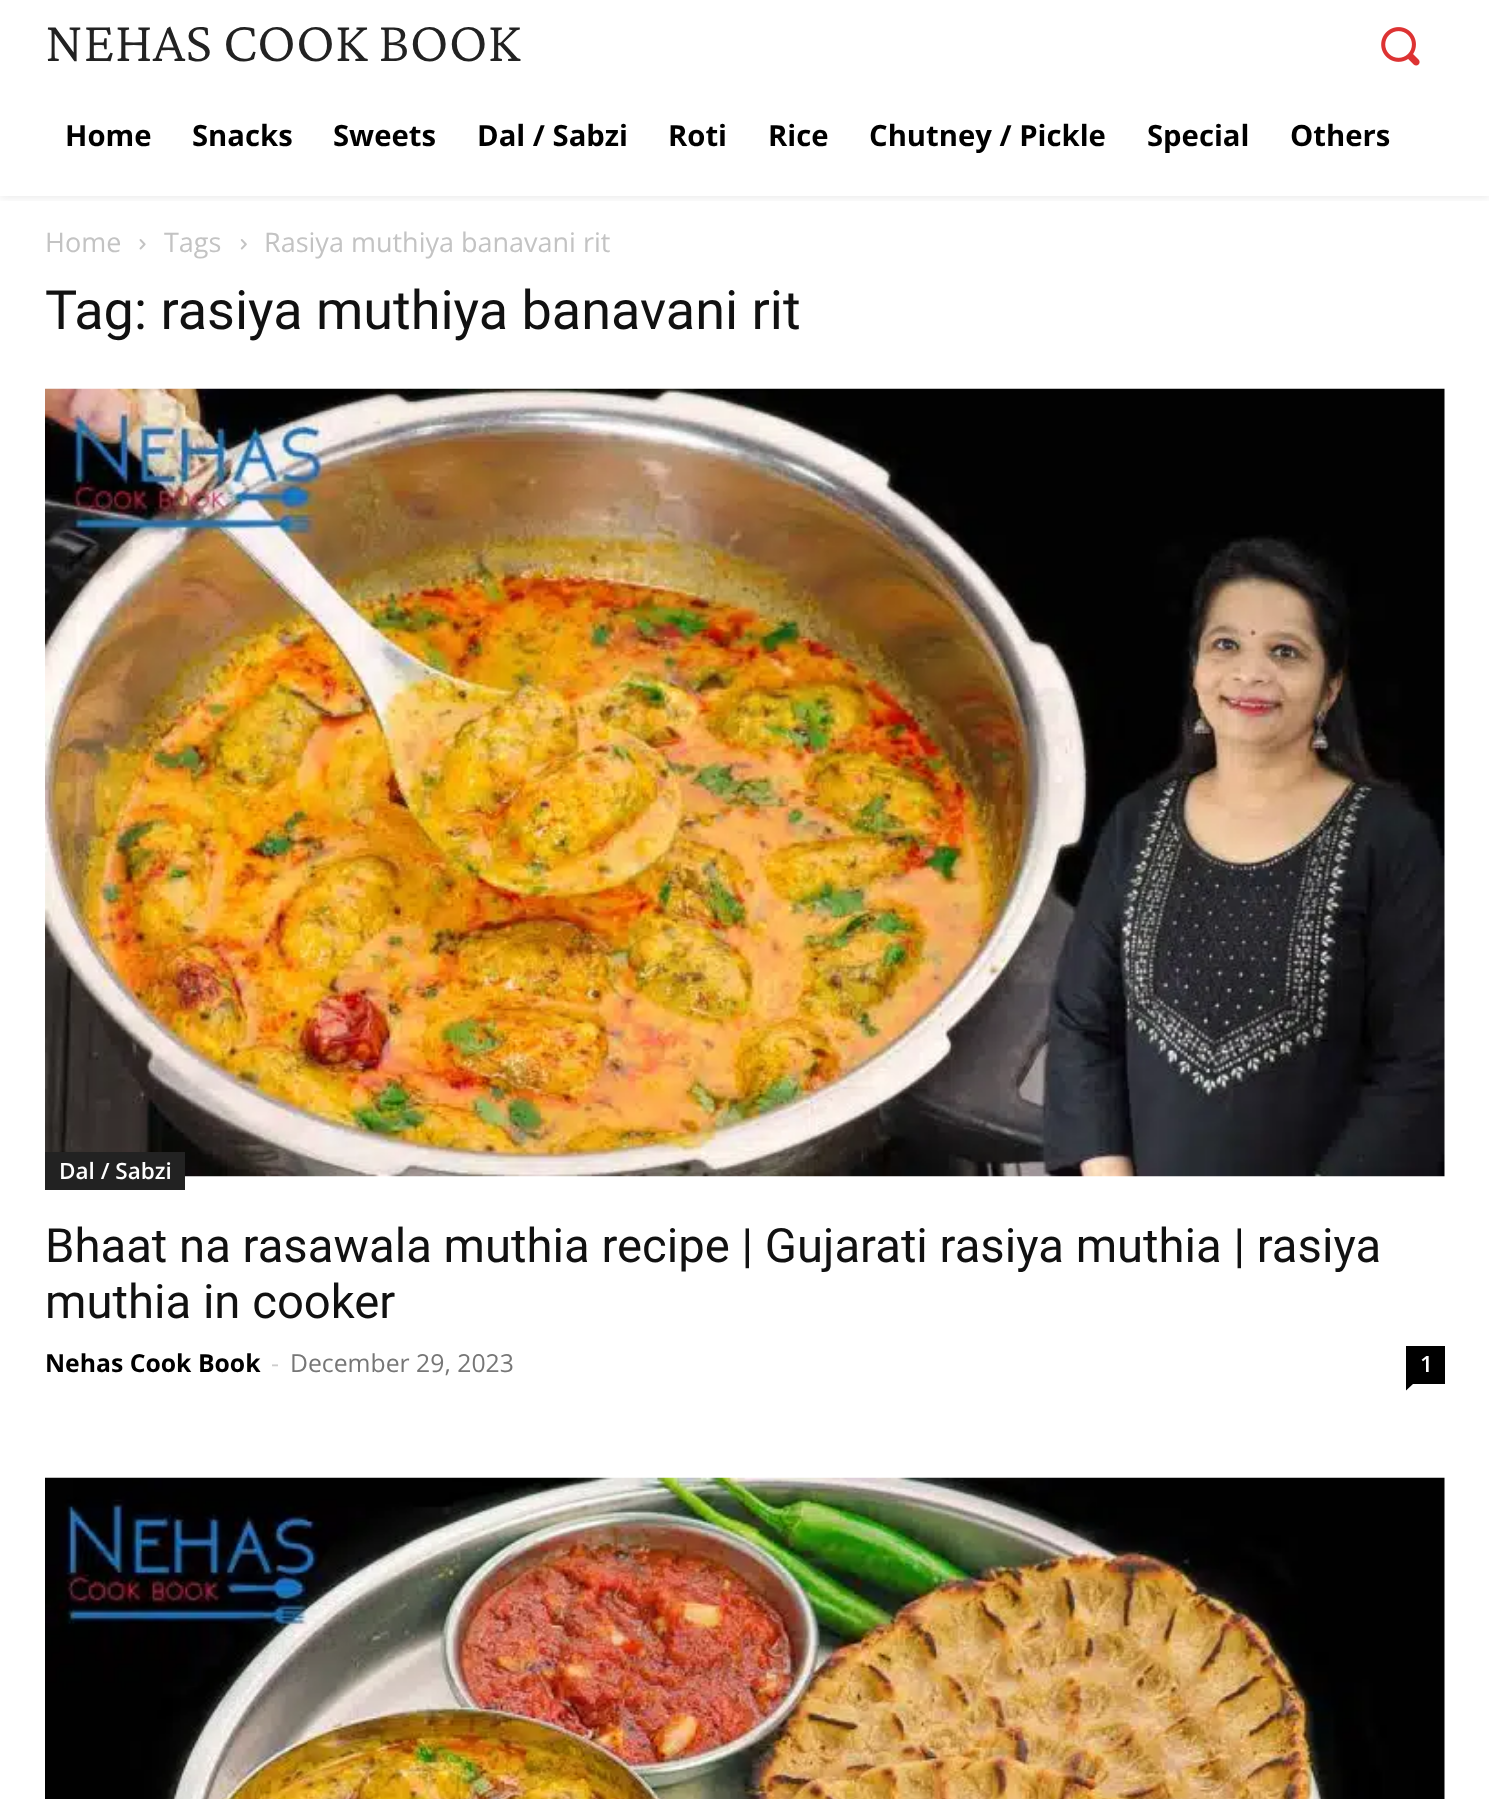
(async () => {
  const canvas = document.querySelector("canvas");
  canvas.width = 1489;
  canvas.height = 1799;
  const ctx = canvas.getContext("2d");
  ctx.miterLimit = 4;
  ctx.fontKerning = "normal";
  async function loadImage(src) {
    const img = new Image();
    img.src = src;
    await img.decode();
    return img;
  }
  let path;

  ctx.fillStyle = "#ffffff";
  ctx.fillRect(0, 0, 1489, 1799);
  ctx.drawImage(await loadImage("img/1.png"), 1381, 27, 39, 39);
  ctx.save();
  ctx.beginPath();
  ctx.rect(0, 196, 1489, 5);
  ctx.clip();
  ctx.fillStyle = "rgba(0, 0, 0, 0.08)";
  ctx.filter = "blur(4.5px)";
  ctx.beginPath();
  ctx.rect(0, -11, 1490, 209);
  ctx.fill();
  ctx.filter = "none";
  ctx.restore();
  ctx.drawImage(await loadImage("img/2.png"), 139, 239, 7, 11);
  ctx.drawImage(await loadImage("img/3.png"), 240, 239, 7, 11);
  ctx.drawImage(await loadImage("img/4.png"), 45, 388, 1400, 789);
  ctx.fillStyle = "#222222";
  ctx.fillRect(45, 1152, 140, 38);
  ctx.fillStyle = "#000000";
  ctx.fillRect(1406, 1346, 39, 38);
  path = new Path2D("M1406 1384H1413L1406 1390.5Z");
  ctx.fill(path);
  ctx.drawImage(await loadImage("img/5.png"), 45, 1477, 1400, 322);
  ctx.font = "300 58.5px Crimson Pro";
  ctx.fillStyle = "#222222";
  ctx.fillText("NEHAS COOK BOOK", 45, 61);
  ctx.font = "bold 29.25px Open Sans";
  ctx.fillStyle = "#000000";
  for (const [text, x, y] of [
    ["Home", 65, 146],
    ["Snacks", 192, 146],
    ["Sweets", 333, 146],
    ["Dal / Sabzi", 477, 146],
    ["Roti", 668, 146],
    ["Rice", 768, 146],
    ["Chutney / Pickle", 869, 146],
    ["Special", 1147, 146],
    ["Others", 1290, 146],
  ]) {
    ctx.fillText(text, x, y);
  }
  ctx.font = "27px Open Sans";
  ctx.fillStyle = "#c3c3c3";
  for (const [text, x, y] of [
    ["Home", 45, 252],
    ["Tags", 164, 252],
    ["Rasiya muthiya banavani rit", 264, 252],
  ]) {
    ctx.fillText(text, x, y);
  }
  ctx.font = "54px Roboto";
  ctx.fillStyle = "#111111";
  ctx.fillText("Tag: rasiya muthiya banavani rit", 45, 329);
  ctx.font = "600 22.5px Open Sans";
  ctx.fillStyle = "#ffffff";
  ctx.fillText("Dal / Sabzi", 59, 1179);
  ctx.font = "47.25px Roboto";
  ctx.fillStyle = "#111111";
  ctx.fillText("Bhaat na rasawala muthia recipe | Gujarati rasiya muthia | rasiya", 45, 1262);
  ctx.fillText("muthia in cooker", 45, 1318);
  ctx.font = "bold 24.75px Open Sans";
  ctx.fillStyle = "#000000";
  ctx.fillText("Nehas Cook Book", 45, 1372);
  ctx.font = "24.75px Open Sans";
  ctx.fillStyle = "#cccccc";
  ctx.fillText("-", 271, 1372);
  ctx.fillStyle = "#767676";
  ctx.fillText("December 29, 2023", 290, 1372);
  ctx.font = "600 22.5px Open Sans";
  ctx.fillStyle = "#ffffff";
  ctx.fillText("1", 1420, 1372);
})();
